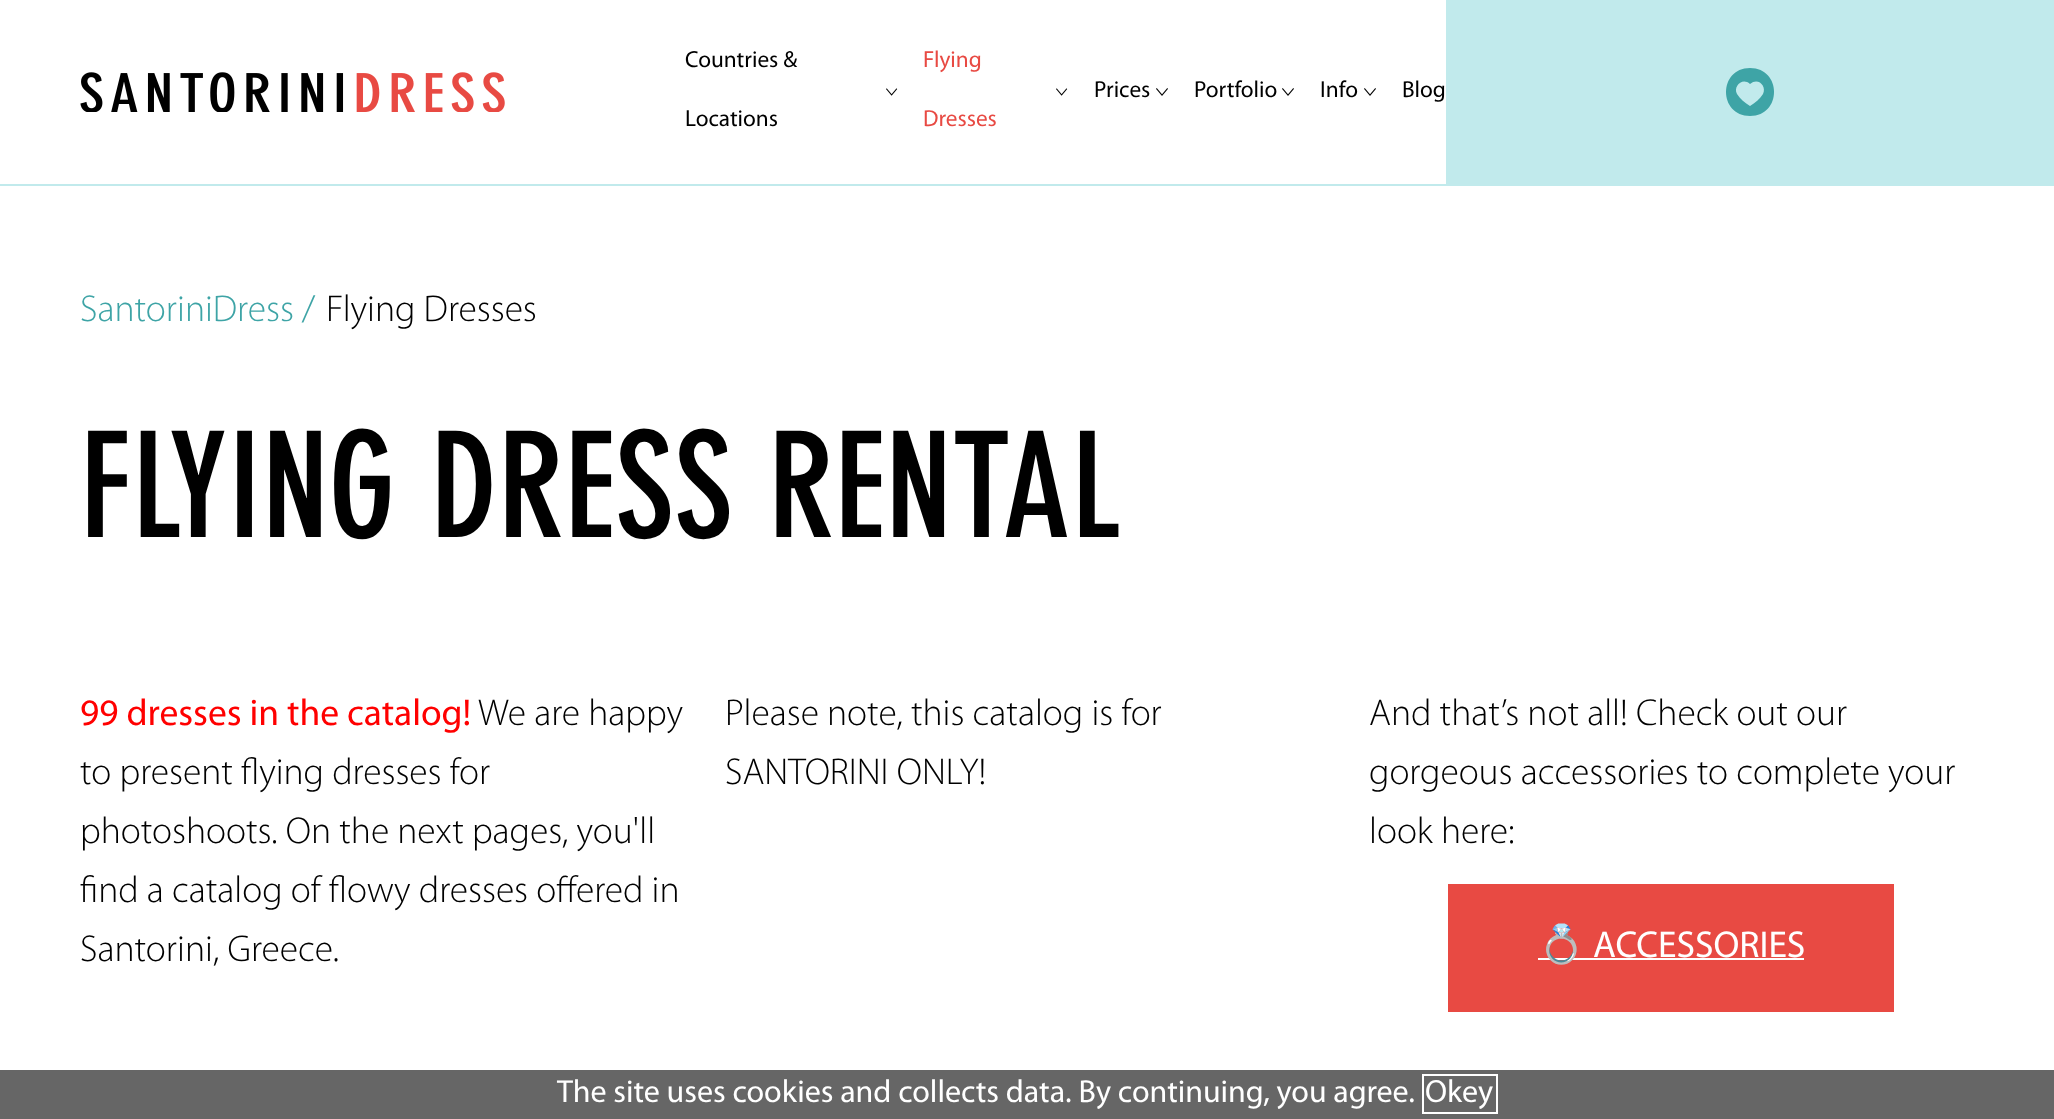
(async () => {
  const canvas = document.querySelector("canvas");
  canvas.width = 2054;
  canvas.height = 1119;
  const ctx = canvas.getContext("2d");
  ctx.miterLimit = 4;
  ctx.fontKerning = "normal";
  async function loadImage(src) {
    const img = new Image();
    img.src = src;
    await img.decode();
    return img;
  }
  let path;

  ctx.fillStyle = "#ffffff";
  ctx.fillRect(0, 0, 2054, 1119);
  ctx.fillStyle = "#c1eaec";
  ctx.fillRect(0, 184, 2054, 2);
  ctx.drawImage(await loadImage("img/1.png"), 80, 72, 425, 40);
  ctx.drawImage(await loadImage("img/2.png"), 886, 88, 12, 8);
  ctx.drawImage(await loadImage("img/2.png"), 1056, 88, 12, 8);
  ctx.drawImage(await loadImage("img/3.png"), 1156, 88, 12, 8);
  ctx.drawImage(await loadImage("img/3.png"), 1282, 88, 12, 8);
  ctx.drawImage(await loadImage("img/3.png"), 1364, 88, 12, 8);
  ctx.fillRect(1446, 0, 608, 184);
  ctx.fillStyle = "#3ea4a6";
  path = new Path2D("M1750 68C1718 68 1718 116 1750 116C1782 116 1782 68 1750 68ZM1750 106C1745 103 1740 99 1737 94C1733 87 1742 77 1750 84C1758 77 1767 86 1763 94C1760 99 1755 103 1750 106Z");
  ctx.fill(path);
  for (const [x, y, w, h, color] of [
    [1448, 884, 446, 128, "#e84a43"],
    [1538, 958, 266, 2, "#ffffff"],
    [0, 1070, 2054, 49, "#666666"],
  ]) {
    ctx.fillStyle = color;
    ctx.fillRect(x, y, w, h);
  }
  ctx.strokeStyle = "#ffffff";
  ctx.lineWidth = 2;
  ctx.strokeRect(1423, 1075, 74, 38);
  ctx.font = "23.25px Myriad";
  ctx.fillStyle = "#000000";
  ctx.fillText("Countries &", 685, 67);
  ctx.fillText("Locations", 685, 126);
  ctx.fillStyle = "#e84a43";
  ctx.fillText("Flying", 923, 67);
  ctx.fillText("Dresses", 923, 126);
  ctx.fillStyle = "#000000";
  for (const [text, x, y] of [
    ["Prices", 1094, 97],
    ["Portfolio", 1194, 97],
    ["Info", 1320, 97],
    ["Blog", 1402, 97],
  ]) {
    ctx.fillText(text, x, y);
  }
  ctx.font = "300 37.5px Myriad";
  ctx.fillStyle = "#3ea4a6";
  ctx.fillText("SantoriniDress /", 80, 321);
  ctx.fillStyle = "#000000";
  ctx.fillText("Flying Dresses", 326, 321);
  ctx.font = "bold 144.5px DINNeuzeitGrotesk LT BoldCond";
  ctx.fillText("FLYING DRESS RENTAL", 80, 537);
  ctx.font = "37.5px Myriad";
  ctx.fillStyle = "#ff0000";
  ctx.fillText("99 dresses in the catalog!", 80, 725);
  ctx.font = "300 37.5px Myriad";
  ctx.fillStyle = "#000000";
  for (const [text, x, y] of [
    ["We are happy", 478, 725],
    ["to present flying dresses for", 80, 784],
    ["photoshoots. On the next pages, you'll", 80, 843],
    ["find a catalog of flowy dresses offered in", 80, 902],
    ["Santorini, Greece.", 80, 961],
    ["Please note, this catalog is for", 725, 725],
    ["SANTORINI ONLY!", 725, 784],
    ["And that’s not all! Check out our", 1369, 725],
    ["gorgeous accessories to complete your", 1369, 784],
    ["look here:", 1369, 843],
  ]) {
    ctx.fillText(text, x, y);
  }
  ctx.font = "37.5px Noto Color Emoji";
  ctx.fillStyle = "#ffffff";
  ctx.fillText("💍", 1538, 957);
  ctx.font = "37.5px Myriad";
  ctx.fillText("ACCESSORIES", 1593, 957);
  ctx.font = "32px Myriad";
  ctx.fillText("The site uses cookies and collects data. By continuing, you agree.", 557, 1102);
  ctx.fillText("Okey", 1425, 1102);
})();
